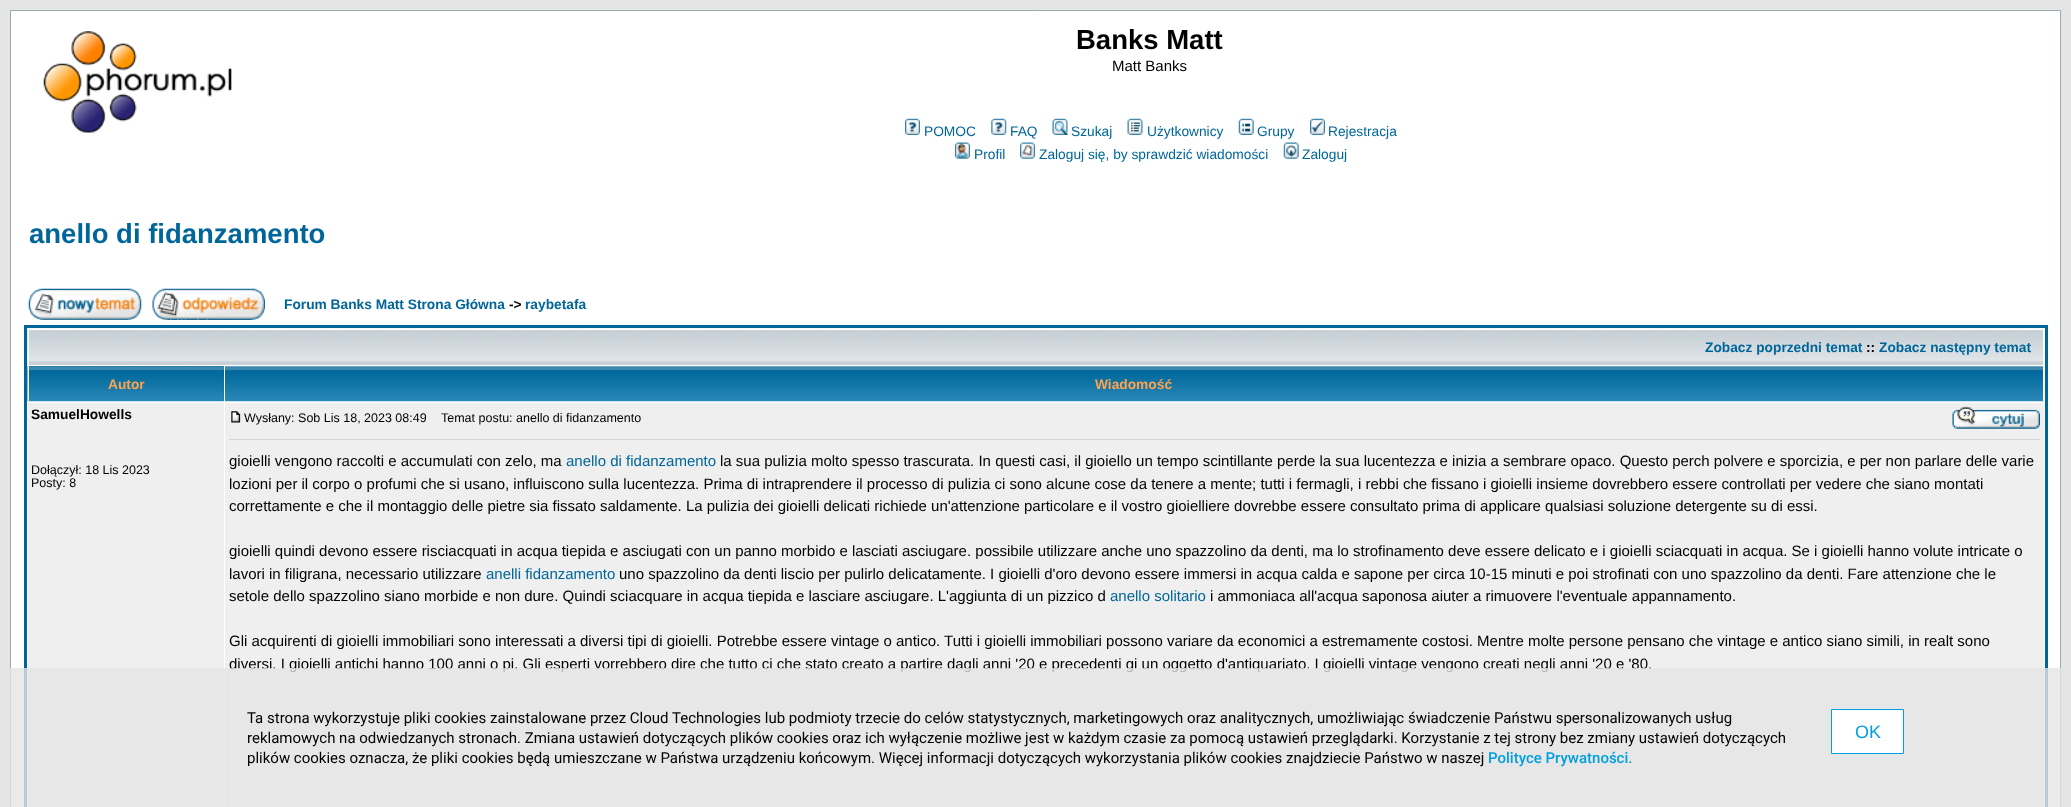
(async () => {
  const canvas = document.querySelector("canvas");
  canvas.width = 2071;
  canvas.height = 807;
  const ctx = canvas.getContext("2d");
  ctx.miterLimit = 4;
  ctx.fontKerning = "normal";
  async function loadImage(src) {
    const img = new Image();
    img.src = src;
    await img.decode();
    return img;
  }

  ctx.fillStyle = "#e5e5e5";
  ctx.fillRect(0, 0, 2071, 807);
  ctx.fillStyle = "#ffffff";
  ctx.beginPath();
  ctx.rect(10.5, 10.5, 2050, 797);
  ctx.fill();
  ctx.strokeStyle = "#98aab1";
  ctx.stroke();
  ctx.drawImage(await loadImage("img/1.png"), 43, 31, 189, 102);
  ctx.drawImage(await loadImage("img/2.png"), 905, 118, 15, 17);
  ctx.drawImage(await loadImage("img/3.png"), 991, 118, 16, 17);
  ctx.drawImage(await loadImage("img/4.png"), 1052, 118, 16, 17);
  ctx.drawImage(await loadImage("img/5.png"), 1127, 118, 16, 17);
  ctx.drawImage(await loadImage("img/6.png"), 1238, 118, 16, 17);
  ctx.drawImage(await loadImage("img/7.png"), 1310, 118, 15, 17);
  ctx.drawImage(await loadImage("img/8.png"), 955, 142, 15, 17);
  ctx.drawImage(await loadImage("img/9.png"), 1020, 142, 15, 17);
  ctx.drawImage(await loadImage("img/10.png"), 1283, 142, 16, 17);
  ctx.drawImage(await loadImage("img/11.png"), 28, 288, 114, 32);
  ctx.drawImage(await loadImage("img/12.png"), 152, 288, 113, 32);
  ctx.strokeStyle = "#006699";
  ctx.lineWidth = 3;
  ctx.strokeRect(25.5, 326.5, 2021, 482);
  ctx.drawImage(await loadImage("img/13.png"), 27, 328, 2017, 37);
  for (const [x, y, w, h, color] of [
    [28, 329, 2016, 1, "#ffffff"],
    [2043, 329, 1, 36, "#ffffff"],
    [28, 329, 1, 36, "#ffffff"],
    [29, 366, 195, 35, "#006699"],
  ]) {
    ctx.fillStyle = color;
    ctx.fillRect(x, y, w, h);
  }
  ctx.drawImage(await loadImage("img/14.png"), 27, 366, 197, 36);
  ctx.fillStyle = "#ffffff";
  ctx.fillRect(28, 366, 1, 35);
  ctx.drawImage(await loadImage("img/15.png"), 225, 366, 1819, 36);
  for (const [x, y, w, h, color] of [
    [2043, 366, 1, 35, "#ffffff"],
    [28, 403, 196, 404, "#efefef"],
    [225, 403, 1819, 404, "#efefef"],
  ]) {
    ctx.fillStyle = color;
    ctx.fillRect(x, y, w, h);
  }
  ctx.drawImage(await loadImage("img/16.png"), 231, 411, 10, 12);
  ctx.drawImage(await loadImage("img/17.png"), 1952, 406, 88, 23);
  ctx.fillStyle = "#d1d7dc";
  ctx.fillRect(229, 439, 1811, 1);
  ctx.font = "bold 27.5px Liberation Sans";
  ctx.fillStyle = "#000000";
  ctx.fillText("Banks Matt", 1076, 49);
  ctx.font = "15px Liberation Sans";
  ctx.fillText("Matt Banks", 1112, 71);
  ctx.font = "13.75px Liberation Sans";
  ctx.fillStyle = "#006699";
  for (const [text, x, y] of [
    ["POMOC", 924, 136],
    ["FAQ", 1010, 136],
    ["Szukaj", 1071, 136],
    ["Użytkownicy", 1147, 136],
    ["Grupy", 1257, 136],
    ["Rejestracja", 1328, 136],
    ["Profil", 974, 159],
    ["Zaloguj się, by sprawdzić wiadomości", 1039, 159],
    ["Zaloguj", 1302, 159],
  ]) {
    ctx.fillText(text, x, y);
  }
  ctx.font = "bold 27.5px Liberation Sans";
  ctx.fillText("anello di fidanzamento", 29, 243);
  ctx.font = "bold 13.75px Liberation Sans";
  ctx.fillText("Forum Banks Matt Strona Główna", 284, 309);
  ctx.fillStyle = "#000000";
  ctx.fillText("->", 509, 309);
  ctx.fillStyle = "#006699";
  ctx.fillText("raybetafa", 525, 309);
  ctx.fillText("Zobacz poprzedni temat", 1705, 352);
  ctx.fillStyle = "#000000";
  ctx.fillText("::", 1866, 352);
  ctx.fillStyle = "#006699";
  ctx.fillText("Zobacz następny temat", 1879, 352);
  ctx.fillStyle = "#ffa34f";
  ctx.fillText("Autor", 108, 389);
  ctx.fillText("Wiadomość", 1095, 389);
  ctx.fillStyle = "#000000";
  ctx.fillText("SamuelHowells", 31, 419);
  ctx.font = "12.5px Liberation Sans";
  for (const [text, x, y] of [
    ["Dołączył: 18 Lis 2023", 31, 474],
    ["Posty: 8", 31, 487],
    ["Wysłany: Sob Lis 18, 2023 08:49", 244, 422],
    ["Temat postu: anello di fidanzamento", 441, 422],
  ]) {
    ctx.fillText(text, x, y);
  }
  ctx.font = "15px Liberation Sans";
  ctx.fillText("gioielli vengono raccolti e accumulati con zelo, ma", 229, 466);
  ctx.fillStyle = "#006699";
  ctx.fillText("anello di fidanzamento", 566, 466);
  ctx.fillStyle = "#000000";
  for (const [text, x, y] of [
    ["la sua pulizia molto spesso trascurata. In questi casi, il gioiello un tempo scintillante perde la sua lucentezza e inizia a sembrare opaco. Questo perch polvere e sporcizia, e per non parlare delle varie", 720, 466],
    ["lozioni per il corpo o profumi che si usano, influiscono sulla lucentezza. Prima di intraprendere il processo di pulizia ci sono alcune cose da tenere a mente; tutti i fermagli, i rebbi che fissano i gioielli insieme dovrebbero essere controllati per vedere che siano montati", 229, 489],
    ["correttamente e che il montaggio delle pietre sia fissato saldamente. La pulizia dei gioielli delicati richiede un'attenzione particolare e il vostro gioielliere dovrebbe essere consultato prima di applicare qualsiasi soluzione detergente su di essi.", 229, 511],
    ["gioielli quindi devono essere risciacquati in acqua tiepida e asciugati con un panno morbido e lasciati asciugare. possibile utilizzare anche uno spazzolino da denti, ma lo strofinamento deve essere delicato e i gioielli sciacquati in acqua. Se i gioielli hanno volute intricate o", 229, 556],
    ["lavori in filigrana, necessario utilizzare", 229, 579],
  ]) {
    ctx.fillText(text, x, y);
  }
  ctx.fillStyle = "#006699";
  ctx.fillText("anelli fidanzamento", 486, 579);
  ctx.fillStyle = "#000000";
  ctx.fillText("uno spazzolino da denti liscio per pulirlo delicatamente. I gioielli d'oro devono essere immersi in acqua calda e sapone per circa 10-15 minuti e poi strofinati con uno spazzolino da denti. Fare attenzione che le", 619, 579);
  ctx.fillText("setole dello spazzolino siano morbide e non dure. Quindi sciacquare in acqua tiepida e lasciare asciugare. L'aggiunta di un pizzico d", 229, 601);
  ctx.fillStyle = "#006699";
  ctx.fillText("anello solitario", 1110, 601);
  ctx.fillStyle = "#000000";
  for (const [text, x, y] of [
    ["i ammoniaca all'acqua saponosa aiuter a rimuovere l'eventuale appannamento.", 1210, 601],
    ["Gli acquirenti di gioielli immobiliari sono interessati a diversi tipi di gioielli. Potrebbe essere vintage o antico. Tutti i gioielli immobiliari possono variare da economici a estremamente costosi. Mentre molte persone pensano che vintage e antico siano simili, in realt sono", 229, 646],
    ["diversi. I gioielli antichi hanno 100 anni o pi. Gli esperti vorrebbero dire che tutto ci che stato creato a partire dagli anni '20 e precedenti gi un oggetto d'antiquariato. I gioielli vintage vengono creati negli anni '20 e '80.", 229, 669],
  ]) {
    ctx.fillText(text, x, y);
  }
  ctx.fillStyle = "rgba(229, 229, 229, 0.8)";
  ctx.fillRect(10, 668, 2051, 139);
  ctx.font = "15px Roboto";
  ctx.fillStyle = "#000000";
  for (const [text, x, y] of [
    ["Ta strona wykorzystuje pliki cookies zainstalowane przez Cloud Technologies lub podmioty trzecie do celów statystycznych, marketingowych oraz analitycznych, umożliwiając świadczenie Państwu spersonalizowanych usług", 247, 723],
    ["reklamowych na odwiedzanych stronach. Zmiana ustawień dotyczących plików cookies oraz ich wyłączenie możliwe jest w każdym czasie za pomocą ustawień przeglądarki. Korzystanie z tej strony bez zmiany ustawień dotyczących", 247, 743],
    ["plików cookies oznacza, że pliki cookies będą umieszczane w Państwa urządzeniu końcowym. Więcej informacji dotyczących wykorzystania plików cookies znajdziecie Państwo w naszej", 247, 763],
  ]) {
    ctx.fillText(text, x, y);
  }
  ctx.font = "500 15px Roboto";
  ctx.fillStyle = "#009fdf";
  ctx.fillText("Polityce Prywatności.", 1488, 763);
  ctx.fillStyle = "#ffffff";
  ctx.beginPath();
  ctx.rect(1831.5, 709.5, 72, 44);
  ctx.fill();
  ctx.strokeStyle = "#009fdf";
  ctx.lineWidth = 1;
  ctx.stroke();
  ctx.font = "18px Liberation Sans";
  ctx.fillStyle = "#009fdf";
  ctx.fillText("OK", 1855, 738);
})();
